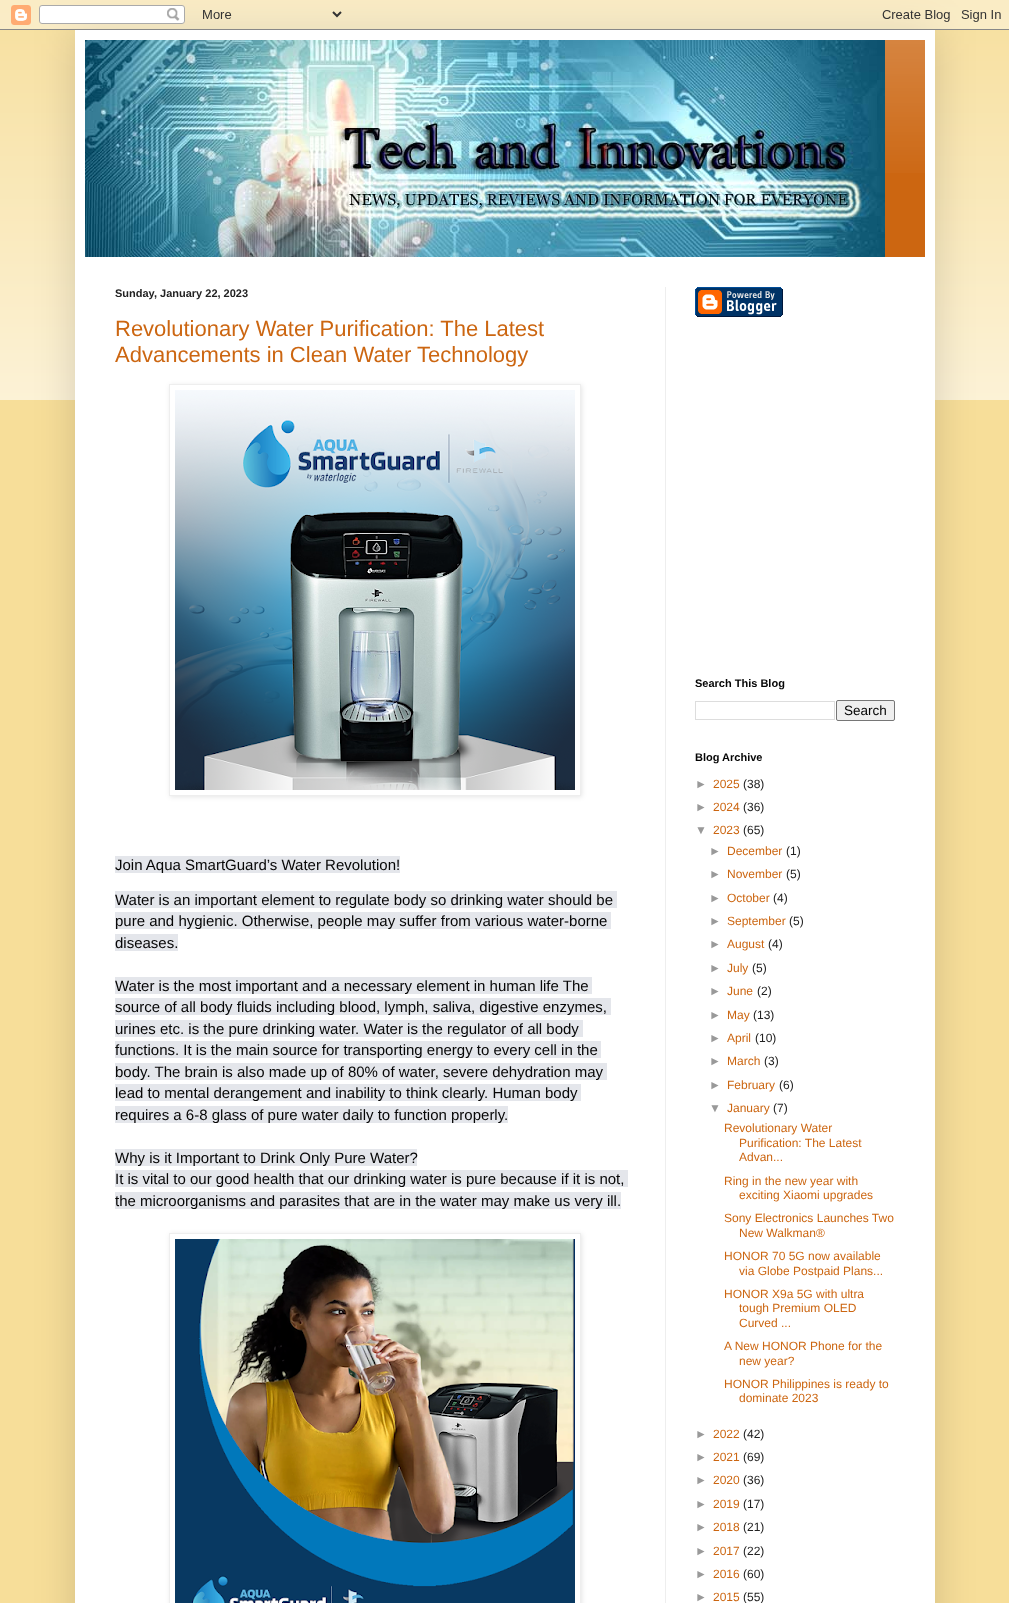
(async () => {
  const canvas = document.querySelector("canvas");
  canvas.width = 1009;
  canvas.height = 1603;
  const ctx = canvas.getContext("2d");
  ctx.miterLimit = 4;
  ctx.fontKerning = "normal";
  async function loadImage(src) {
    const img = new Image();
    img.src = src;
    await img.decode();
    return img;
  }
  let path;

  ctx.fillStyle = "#f7de99";
  ctx.fillRect(0, 0, 1009, 1603);
  ctx.drawImage(await loadImage("img/1.png"), 0, 0, 1009, 400);
  ctx.fillStyle = "rgba(0, 0, 0, 0.15)";
  ctx.filter = "blur(20px)";
  ctx.beginPath();
  ctx.rect(75, 30, 860, 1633);
  ctx.fill();
  ctx.filter = "none";
  ctx.drawImage(await loadImage("img/2.png"), 0, 0, 1009, 30);
  ctx.fillStyle = "#ffffff";
  ctx.fillRect(75, 30, 860, 1573);
  ctx.fillStyle = "#cc6611";
  ctx.fillRect(885, 40, 40, 217);
  ctx.drawImage(await loadImage("img/3.png"), 885, 40, 40, 133);
  ctx.drawImage(await loadImage("img/4.png"), 85, 40, 800, 217);
  ctx.fillStyle = "#eeeeee";
  ctx.fillRect(665, 287, 1, 1316);
  ctx.save();
  path = new Path2D("M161 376H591V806H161ZM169 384H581V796H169Z");
  ctx.clip(path, "evenodd");
  ctx.fillStyle = "rgba(0, 0, 0, 0.1)";
  ctx.filter = "blur(2.5px)";
  ctx.beginPath();
  ctx.rect(170, 385, 412, 412);
  ctx.fill();
  ctx.filter = "none";
  ctx.restore();
  ctx.strokeStyle = "#eeeeee";
  ctx.strokeRect(169.5, 384.5, 411, 411);
  ctx.drawImage(await loadImage("img/5.png"), 175, 390, 400, 400);
  for (const [x, y, w, h, color] of [
    [115, 856, 285, 17, "#e4e6eb"],
    [115, 891, 502, 17, "#e4e6eb"],
    [115, 912, 496, 17, "#e4e6eb"],
    [115, 934, 63, 17, "#e4e6eb"],
    [115, 977, 477, 17, "#e4e6eb"],
    [115, 998, 496, 17, "#e4e6eb"],
    [115, 1020, 468, 17, "#e4e6eb"],
    [115, 1041, 486, 17, "#e4e6eb"],
    [115, 1063, 492, 17, "#e4e6eb"],
    [115, 1084, 466, 17, "#e4e6eb"],
    [115, 1106, 393, 17, "#e4e6eb"],
    [115, 1149, 302, 17, "#e4e6eb"],
    [115, 1170, 513, 17, "#e4e6eb"],
    [115, 1192, 506, 17, "#e4e6eb"],
  ]) {
    ctx.fillStyle = color;
    ctx.fillRect(x, y, w, h);
  }
  ctx.save();
  path = new Path2D("M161 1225H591V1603H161ZM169 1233H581V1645H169Z");
  ctx.clip(path, "evenodd");
  ctx.fillStyle = "rgba(0, 0, 0, 0.1)";
  ctx.filter = "blur(2.5px)";
  ctx.beginPath();
  ctx.rect(170, 1234, 412, 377);
  ctx.fill();
  ctx.filter = "none";
  ctx.restore();
  ctx.strokeRect(169.5, 1233.5, 411, 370);
  ctx.drawImage(await loadImage("img/6.png"), 175, 1239, 400, 364);
  ctx.drawImage(await loadImage("img/7.png"), 695, 287, 88, 30);
  ctx.strokeStyle = "#dddddd";
  ctx.strokeRect(695.5, 701.5, 139, 18);
  ctx.fillStyle = "#efefef";
  ctx.beginPath();
  ctx.roundRect(836.5, 700.5, 58, 20, 1.5);
  ctx.fill();
  ctx.strokeStyle = "#767676";
  ctx.stroke();
  ctx.font = "bold 11px Liberation Sans";
  ctx.fillStyle = "#222222";
  ctx.fillText("Sunday, January 22, 2023", 115, 297);
  ctx.font = "22px Liberation Sans";
  ctx.fillStyle = "#cc6611";
  ctx.fillText("Revolutionary Water Purification: The Latest", 115, 336);
  ctx.fillText("Advancements in Clean Water Technology", 115, 362);
  ctx.font = "15px Liberation Sans";
  ctx.fillStyle = "#050505";
  for (const [text, x, y] of [
    ["Join Aqua SmartGuard’s Water Revolution!", 115, 870],
    ["Water is an important element to regulate body so drinking water should be", 115, 905],
    ["pure and hygienic. Otherwise, people may suffer from various water-borne", 115, 926],
    ["diseases.", 115, 948],
    ["Water is the most important and a necessary element in human life The", 115, 991],
    ["source of all body fluids including blood, lymph, saliva, digestive enzymes,", 115, 1012],
    ["urines etc. is the pure drinking water. Water is the regulator of all body", 115, 1034],
    ["functions. It is the main source for transporting energy to every cell in the", 115, 1055],
    ["body. The brain is also made up of 80% of water, severe dehydration may", 115, 1077],
    ["lead to mental derangement and inability to think clearly. Human body", 115, 1098],
    ["requires a 6-8 glass of pure water daily to function properly.", 115, 1120],
    ["Why is it Important to Drink Only Pure Water?", 115, 1163],
    ["It is vital to our good health that our drinking water is pure because if it is not,", 115, 1184],
    ["the microorganisms and parasites that are in the water may make us very ill.", 115, 1206],
  ]) {
    ctx.fillText(text, x, y);
  }
  ctx.font = "bold 11px Liberation Sans";
  ctx.fillText("Search This Blog", 695, 687);
  ctx.font = "13.5px Liberation Sans";
  ctx.fillText("Search", 844, 715);
  ctx.font = "bold 11px Liberation Sans";
  ctx.fillText("Blog Archive", 695, 761);
  ctx.font = "12px Liberation Sans";
  ctx.fillStyle = "#999999";
  ctx.fillText("►", 695, 788);
  ctx.fillStyle = "#cc6611";
  ctx.fillText("2025", 713, 788);
  ctx.fillStyle = "#222222";
  ctx.fillText("(38)", 743, 788);
  ctx.fillStyle = "#999999";
  ctx.fillText("►", 695, 811);
  ctx.fillStyle = "#cc6611";
  ctx.fillText("2024", 713, 811);
  ctx.fillStyle = "#222222";
  ctx.fillText("(36)", 743, 811);
  ctx.fillStyle = "#999999";
  ctx.fillText("▼", 695, 834);
  ctx.fillStyle = "#cc6611";
  ctx.fillText("2023", 713, 834);
  ctx.fillStyle = "#222222";
  ctx.fillText("(65)", 743, 834);
  ctx.fillStyle = "#999999";
  ctx.fillText("►", 709, 855);
  ctx.fillStyle = "#cc6611";
  ctx.fillText("December", 727, 855);
  ctx.fillStyle = "#222222";
  ctx.fillText("(1)", 786, 855);
  ctx.fillStyle = "#999999";
  ctx.fillText("►", 709, 878);
  ctx.fillStyle = "#cc6611";
  ctx.fillText("November", 727, 878);
  ctx.fillStyle = "#222222";
  ctx.fillText("(5)", 786, 878);
  ctx.fillStyle = "#999999";
  ctx.fillText("►", 709, 902);
  ctx.fillStyle = "#cc6611";
  ctx.fillText("October", 727, 902);
  ctx.fillStyle = "#222222";
  ctx.fillText("(4)", 773, 902);
  ctx.fillStyle = "#999999";
  ctx.fillText("►", 709, 925);
  ctx.fillStyle = "#cc6611";
  ctx.fillText("September", 727, 925);
  ctx.fillStyle = "#222222";
  ctx.fillText("(5)", 789, 925);
  ctx.fillStyle = "#999999";
  ctx.fillText("►", 709, 948);
  ctx.fillStyle = "#cc6611";
  ctx.fillText("August", 727, 948);
  ctx.fillStyle = "#222222";
  ctx.fillText("(4)", 768, 948);
  ctx.fillStyle = "#999999";
  ctx.fillText("►", 709, 972);
  ctx.fillStyle = "#cc6611";
  ctx.fillText("July", 727, 972);
  ctx.fillStyle = "#222222";
  ctx.fillText("(5)", 752, 972);
  ctx.fillStyle = "#999999";
  ctx.fillText("►", 709, 995);
  ctx.fillStyle = "#cc6611";
  ctx.fillText("June", 727, 995);
  ctx.fillStyle = "#222222";
  ctx.fillText("(2)", 757, 995);
  ctx.fillStyle = "#999999";
  ctx.fillText("►", 709, 1019);
  ctx.fillStyle = "#cc6611";
  ctx.fillText("May", 727, 1019);
  ctx.fillStyle = "#222222";
  ctx.fillText("(13)", 753, 1019);
  ctx.fillStyle = "#999999";
  ctx.fillText("►", 709, 1042);
  ctx.fillStyle = "#cc6611";
  ctx.fillText("April", 727, 1042);
  ctx.fillStyle = "#222222";
  ctx.fillText("(10)", 755, 1042);
  ctx.fillStyle = "#999999";
  ctx.fillText("►", 709, 1065);
  ctx.fillStyle = "#cc6611";
  ctx.fillText("March", 727, 1065);
  ctx.fillStyle = "#222222";
  ctx.fillText("(3)", 764, 1065);
  ctx.fillStyle = "#999999";
  ctx.fillText("►", 709, 1089);
  ctx.fillStyle = "#cc6611";
  ctx.fillText("February", 727, 1089);
  ctx.fillStyle = "#222222";
  ctx.fillText("(6)", 779, 1089);
  ctx.fillStyle = "#999999";
  ctx.fillText("▼", 709, 1112);
  ctx.fillStyle = "#cc6611";
  ctx.fillText("January", 727, 1112);
  ctx.fillStyle = "#222222";
  ctx.fillText("(7)", 773, 1112);
  ctx.fillStyle = "#cc6611";
  for (const [text, x, y] of [
    ["Revolutionary Water", 724, 1132],
    ["Purification: The Latest", 739, 1147],
    ["Advan...", 739, 1161],
    ["Ring in the new year with", 724, 1185],
    ["exciting Xiaomi upgrades", 739, 1199],
    ["Sony Electronics Launches Two", 724, 1222],
    ["New Walkman®", 739, 1237],
    ["HONOR 70 5G now available", 724, 1260],
    ["via Globe Postpaid Plans...", 739, 1275],
    ["HONOR X9a 5G with ultra", 724, 1298],
    ["tough Premium OLED", 739, 1312],
    ["Curved ...", 739, 1327],
    ["A New HONOR Phone for the", 724, 1350],
    ["new year?", 739, 1365],
    ["HONOR Philippines is ready to", 724, 1388],
    ["dominate 2023", 739, 1402],
  ]) {
    ctx.fillText(text, x, y);
  }
  ctx.fillStyle = "#999999";
  ctx.fillText("►", 695, 1438);
  ctx.fillStyle = "#cc6611";
  ctx.fillText("2022", 713, 1438);
  ctx.fillStyle = "#222222";
  ctx.fillText("(42)", 743, 1438);
  ctx.fillStyle = "#999999";
  ctx.fillText("►", 695, 1461);
  ctx.fillStyle = "#cc6611";
  ctx.fillText("2021", 713, 1461);
  ctx.fillStyle = "#222222";
  ctx.fillText("(69)", 743, 1461);
  ctx.fillStyle = "#999999";
  ctx.fillText("►", 695, 1484);
  ctx.fillStyle = "#cc6611";
  ctx.fillText("2020", 713, 1484);
  ctx.fillStyle = "#222222";
  ctx.fillText("(36)", 743, 1484);
  ctx.fillStyle = "#999999";
  ctx.fillText("►", 695, 1508);
  ctx.fillStyle = "#cc6611";
  ctx.fillText("2019", 713, 1508);
  ctx.fillStyle = "#222222";
  ctx.fillText("(17)", 743, 1508);
  ctx.fillStyle = "#999999";
  ctx.fillText("►", 695, 1531);
  ctx.fillStyle = "#cc6611";
  ctx.fillText("2018", 713, 1531);
  ctx.fillStyle = "#222222";
  ctx.fillText("(21)", 743, 1531);
  ctx.fillStyle = "#999999";
  ctx.fillText("►", 695, 1555);
  ctx.fillStyle = "#cc6611";
  ctx.fillText("2017", 713, 1555);
  ctx.fillStyle = "#222222";
  ctx.fillText("(22)", 743, 1555);
  ctx.fillStyle = "#999999";
  ctx.fillText("►", 695, 1578);
  ctx.fillStyle = "#cc6611";
  ctx.fillText("2016", 713, 1578);
  ctx.fillStyle = "#222222";
  ctx.fillText("(60)", 743, 1578);
  ctx.fillStyle = "#999999";
  ctx.fillText("►", 695, 1601);
  ctx.fillStyle = "#cc6611";
  ctx.fillText("2015", 713, 1601);
  ctx.fillStyle = "#222222";
  ctx.fillText("(55)", 743, 1601);
})();
